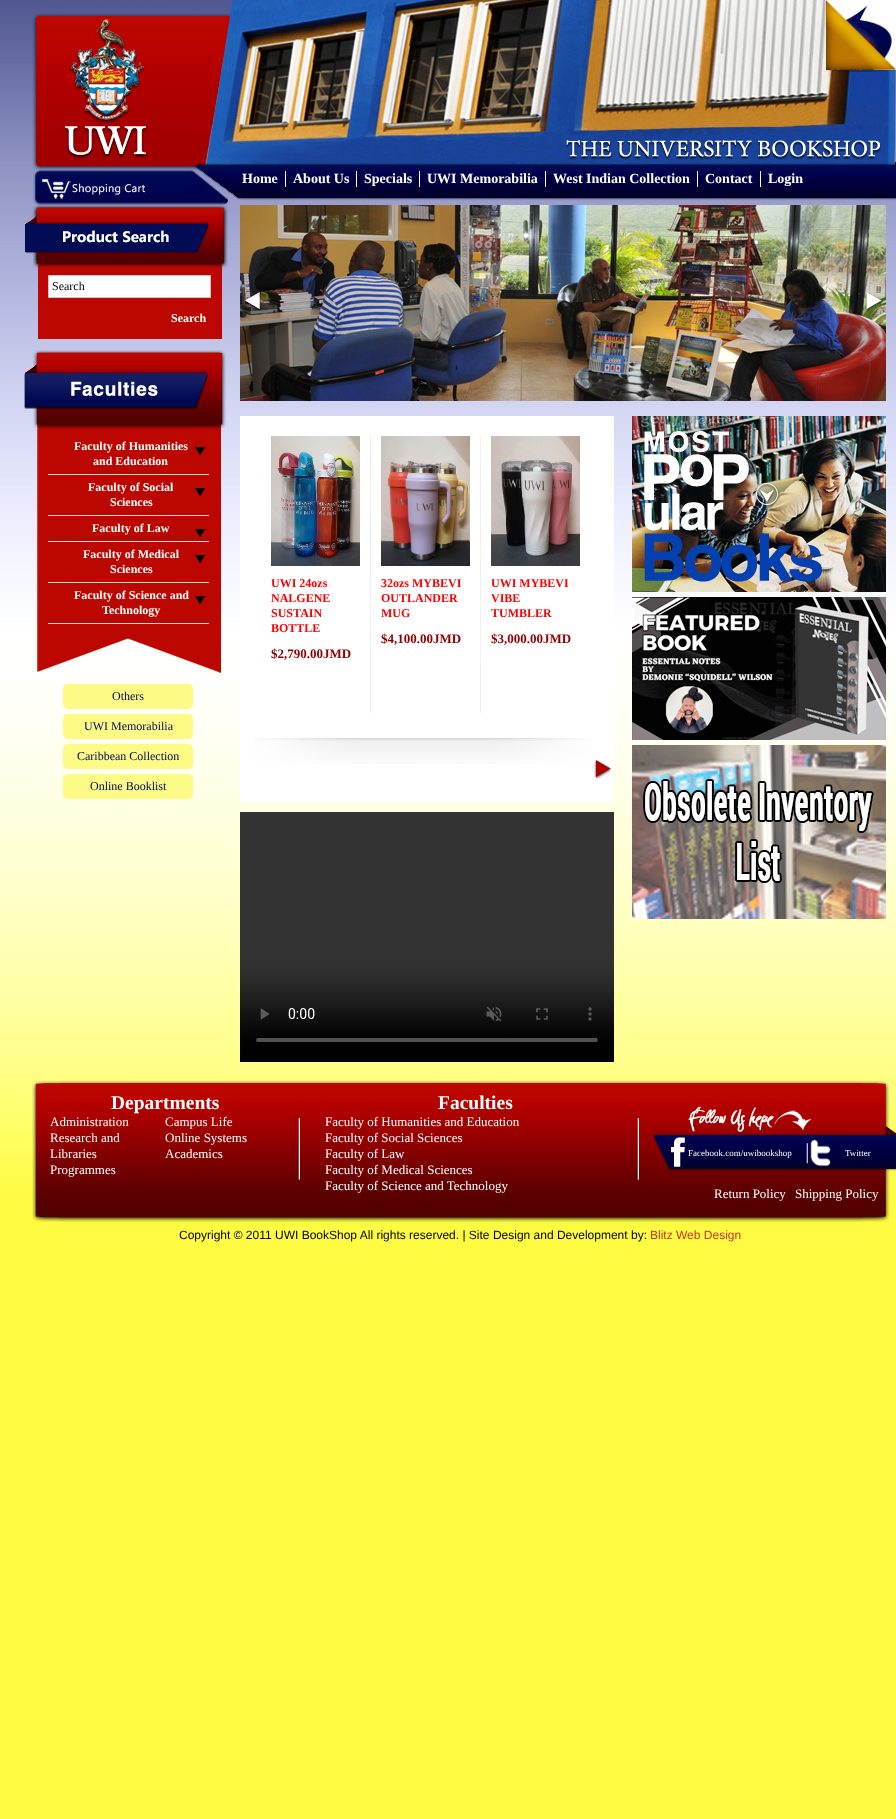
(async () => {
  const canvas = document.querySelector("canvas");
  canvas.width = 896;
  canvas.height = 1819;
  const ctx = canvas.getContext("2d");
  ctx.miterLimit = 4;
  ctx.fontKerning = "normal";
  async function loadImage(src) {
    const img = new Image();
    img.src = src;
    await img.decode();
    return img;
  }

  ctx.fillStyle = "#ffffff";
  ctx.fillRect(0, 0, 896, 1819);
  ctx.drawImage(await loadImage("img/1.png"), 0, 0, 896, 1819);
  ctx.drawImage(await loadImage("img/4.png"), 32, 0, 864, 201);
  ctx.fillRect(826, 0, 70, 70);
  ctx.drawImage(await loadImage("img/2.png"), 826, 5, 66, 65);
  ctx.drawImage(await loadImage("img/3.png"), 826, 0, 70, 72);
  ctx.drawImage(await loadImage("img/5.png"), 63, 19, 85, 140);
  ctx.drawImage(await loadImage("img/6.png"), 33, 170, 195, 35);
  ctx.drawImage(await loadImage("img/7.png"), 42, 179, 104, 20);
  for (const [x, y, w, h, color] of [
    [285, 171, 1, 16, "#ffffff"],
    [356, 171, 1, 16, "#ffffff"],
    [419, 171, 1, 16, "#ffffff"],
    [545, 171, 1, 16, "#ffffff"],
    [697, 171, 1, 16, "#ffffff"],
    [760, 171, 1, 16, "#ffffff"],
  ]) {
    ctx.fillStyle = color;
    ctx.fillRect(x, y, w, h);
  }
  ctx.drawImage(await loadImage("img/8.png"), 25, 205, 203, 65);
  ctx.drawImage(await loadImage("img/9.png"), 25, 205, 203, 65);
  ctx.fillStyle = "#bc0700";
  ctx.fillRect(38, 270, 184, 69);
  ctx.fillStyle = "#ffffff";
  ctx.beginPath();
  ctx.rect(48.5, 275.5, 162, 22);
  ctx.fill();
  ctx.strokeStyle = "#bdc7d8";
  ctx.stroke();
  ctx.drawImage(await loadImage("img/10.png"), 24, 350, 202, 79);
  ctx.drawImage(await loadImage("img/11.png"), 37, 429, 184, 205);
  ctx.drawImage(await loadImage("img/12.png"), 195, 447, 11, 8);
  ctx.fillStyle = "#dddddd";
  ctx.fillRect(48, 474, 161, 1);
  ctx.drawImage(await loadImage("img/12.png"), 195, 488, 11, 8);
  ctx.fillRect(48, 515, 161, 1);
  ctx.drawImage(await loadImage("img/12.png"), 195, 529, 11, 8);
  ctx.fillRect(48, 541, 161, 1);
  ctx.drawImage(await loadImage("img/12.png"), 195, 555, 11, 8);
  ctx.fillRect(48, 582, 161, 1);
  ctx.drawImage(await loadImage("img/12.png"), 195, 596, 11, 8);
  ctx.fillRect(48, 623, 161, 1);
  ctx.drawImage(await loadImage("img/13.png"), 37, 634, 184, 39);
  ctx.fillStyle = "#fdfa86";
  ctx.beginPath();
  ctx.roundRect(63, 684, 130, 25, 5);
  ctx.fill();
  ctx.beginPath();
  ctx.roundRect(63, 714, 130, 25, 5);
  ctx.fill();
  ctx.beginPath();
  ctx.roundRect(63, 744, 130, 25, 5);
  ctx.fill();
  ctx.beginPath();
  ctx.roundRect(63, 774, 130, 25, 5);
  ctx.fill();
  ctx.drawImage(await loadImage("img/14.png"), 240, 205, 646, 196);
  ctx.drawImage(await loadImage("img/15.png"), 244, 292, 18, 19);
  ctx.drawImage(await loadImage("img/16.png"), 864, 292, 19, 19);
  ctx.fillStyle = "#ffffff";
  ctx.fillRect(240, 416, 374, 386);
  ctx.drawImage(await loadImage("img/17.png"), 271, 436, 89, 130);
  ctx.fillStyle = "#f1f1f1";
  ctx.fillRect(370, 436, 1, 277);
  ctx.drawImage(await loadImage("img/18.png"), 381, 436, 89, 130);
  ctx.fillRect(480, 436, 1, 277);
  ctx.drawImage(await loadImage("img/19.png"), 491, 436, 89, 130);
  ctx.drawImage(await loadImage("img/20.png"), 254, 738, 338, 26);
  ctx.drawImage(await loadImage("img/21.png"), 594, 760, 18, 20);
  ctx.drawImage(await loadImage("img/22.png"), 240, 812, 374, 250);
  ctx.drawImage(await loadImage("img/23.png"), 632, 416, 254, 88);
  ctx.drawImage(await loadImage("img/24.png"), 632, 504, 254, 88);
  ctx.drawImage(await loadImage("img/25.png"), 632, 597, 254, 143);
  ctx.drawImage(await loadImage("img/26.png"), 632, 745, 254, 174);
  ctx.drawImage(await loadImage("img/27.png"), 32, 1080, 864, 142);
  ctx.drawImage(await loadImage("img/28.png"), 671, 1137, 14, 30);
  ctx.drawImage(await loadImage("img/29.png"), 810, 1139, 21, 28);
  ctx.font = "bold 14px Liberation Serif";
  ctx.fillStyle = "#ffffff";
  for (const [text, x, y] of [
    ["Home", 242, 183],
    ["About Us", 293, 183],
    ["Specials", 364, 183],
    ["UWI Memorabilia", 427, 183],
    ["West Indian Collection", 553, 183],
    ["Contact", 705, 183],
    ["Login", 768, 183],
  ]) {
    ctx.fillText(text, x, y);
  }
  ctx.font = "12px Liberation Serif";
  ctx.fillStyle = "#000000";
  ctx.fillText("Search", 52, 290);
  ctx.font = "bold 12px Liberation Serif";
  ctx.fillStyle = "#ffffff";
  for (const [text, x, y] of [
    ["Search", 171, 322],
    ["Faculty of Humanities", 74, 450],
    ["and Education", 93, 465],
    ["Faculty of Social", 88, 491],
    ["Sciences", 110, 506],
    ["Faculty of Law", 92, 532],
    ["Faculty of Medical", 83, 558],
    ["Sciences", 110, 573],
    ["Faculty of Science and", 74, 599],
    ["Technology", 102, 614],
  ]) {
    ctx.fillText(text, x, y);
  }
  ctx.font = "12px Liberation Serif";
  ctx.fillStyle = "#000a53";
  for (const [text, x, y] of [
    ["Others", 112, 700],
    ["UWI Memorabilia", 84, 730],
    ["Caribbean Collection", 77, 760],
    ["Online Booklist", 90, 790],
  ]) {
    ctx.fillText(text, x, y);
  }
  ctx.font = "bold 12px Liberation Serif";
  ctx.fillStyle = "#ff0000";
  for (const [text, x, y] of [
    ["UWI 24ozs", 271, 587],
    ["NALGENE", 271, 602],
    ["SUSTAIN", 271, 617],
    ["BOTTLE", 271, 632],
  ]) {
    ctx.fillText(text, x, y);
  }
  ctx.font = "bold 13px Liberation Serif";
  ctx.fillStyle = "#8f0000";
  ctx.fillText("$2,790.00JMD", 271, 658);
  ctx.font = "bold 12px Liberation Serif";
  ctx.fillStyle = "#ff0000";
  for (const [text, x, y] of [
    ["32ozs MYBEVI", 381, 587],
    ["OUTLANDER", 381, 602],
    ["MUG", 381, 617],
  ]) {
    ctx.fillText(text, x, y);
  }
  ctx.font = "bold 13px Liberation Serif";
  ctx.fillStyle = "#8f0000";
  ctx.fillText("$4,100.00JMD", 381, 643);
  ctx.font = "bold 12px Liberation Serif";
  ctx.fillStyle = "#ff0000";
  for (const [text, x, y] of [
    ["UWI MYBEVI", 491, 587],
    ["VIBE", 491, 602],
    ["TUMBLER", 491, 617],
  ]) {
    ctx.fillText(text, x, y);
  }
  ctx.font = "bold 13px Liberation Serif";
  ctx.fillStyle = "#8f0000";
  ctx.fillText("$3,000.00JMD", 491, 643);
  ctx.font = "bold 19.5px Liberation Serif";
  ctx.fillStyle = "#ffffff";
  ctx.fillText("Departments", 111, 1109);
  ctx.font = "13px Liberation Serif";
  for (const [text, x, y] of [
    ["Administration", 50, 1126],
    ["Campus Life", 165, 1126],
    ["Research and", 50, 1142],
    ["Libraries", 50, 1158],
    ["Online Systems", 165, 1142],
    ["Academics", 165, 1158],
    ["Programmes", 50, 1174],
  ]) {
    ctx.fillText(text, x, y);
  }
  ctx.font = "bold 19.5px Liberation Serif";
  ctx.fillText("Faculties", 438, 1109);
  ctx.font = "13px Liberation Serif";
  for (const [text, x, y] of [
    ["Faculty of Humanities and Education", 325, 1126],
    ["Faculty of Social Sciences", 325, 1142],
    ["Faculty of Law", 325, 1158],
    ["Faculty of Medical Sciences", 325, 1174],
    ["Faculty of Science and Technology", 325, 1190],
  ]) {
    ctx.fillText(text, x, y);
  }
  ctx.font = "9px Liberation Serif";
  ctx.fillText("Facebook.com/uwibookshop", 688, 1156);
  ctx.fillText("Twitter", 845, 1156);
  ctx.font = "13px Liberation Serif";
  ctx.fillText("Return Policy", 714, 1198);
  ctx.fillStyle = "#000000";
  ctx.fillText("|", 789, 1198);
  ctx.fillStyle = "#ffffff";
  ctx.fillText("Shipping Policy", 795, 1198);
  ctx.font = "12px Liberation Sans";
  ctx.fillStyle = "#000000";
  ctx.fillText("Copyright © 2011 UWI BookShop All rights reserved. | Site Design and Development by:", 179, 1239);
  ctx.fillStyle = "#be3a2c";
  ctx.fillText("Blitz Web Design", 650, 1239);
})();
